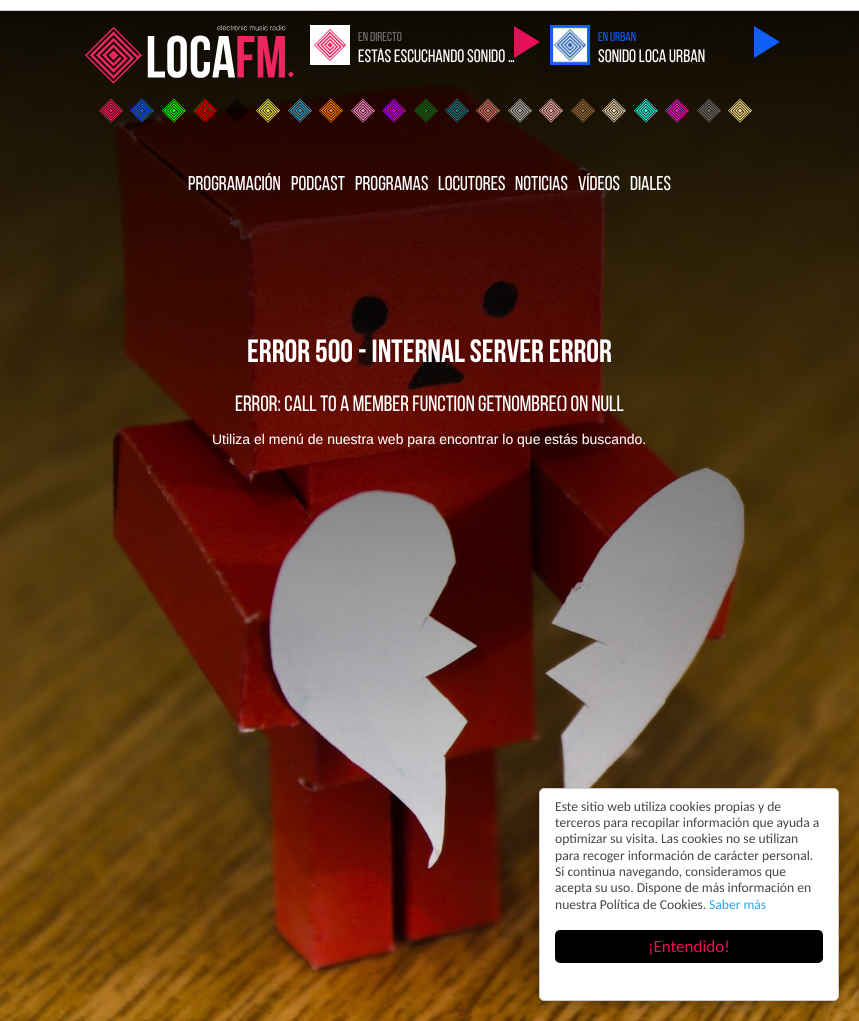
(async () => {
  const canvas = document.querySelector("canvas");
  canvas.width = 859;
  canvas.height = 1021;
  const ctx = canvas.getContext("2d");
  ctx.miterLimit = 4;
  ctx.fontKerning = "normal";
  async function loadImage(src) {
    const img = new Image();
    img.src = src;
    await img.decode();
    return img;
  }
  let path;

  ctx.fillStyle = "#ffffff";
  ctx.fillRect(0, 0, 859, 1021);
  ctx.fillStyle = "#cccccc";
  ctx.fillRect(0, 10, 859, 1);
  ctx.drawImage(await loadImage("img/25.png"), 0, 11, 859, 1010);
  ctx.drawImage(await loadImage("img/1.png"), 85, 25, 209, 59);
  ctx.strokeStyle = "#ffffff";
  ctx.lineWidth = 3;
  ctx.strokeRect(311.5, 26.5, 37, 37);
  ctx.drawImage(await loadImage("img/2.png"), 313, 28, 34, 34);
  ctx.fillStyle = "#e60f58";
  path = new Path2D("M514 26V58L540 42Z");
  ctx.fill(path);
  ctx.strokeStyle = "#0f5fff";
  ctx.strokeRect(551.5, 26.5, 37, 37);
  ctx.drawImage(await loadImage("img/3.png"), 553, 27, 35, 36);
  ctx.fillStyle = "#0f5fff";
  path = new Path2D("M754 26V58L780 42Z");
  ctx.fill(path);
  ctx.drawImage(await loadImage("img/4.png"), 99, 98, 24, 25);
  ctx.drawImage(await loadImage("img/5.png"), 130, 98, 24, 25);
  ctx.drawImage(await loadImage("img/6.png"), 162, 98, 24, 25);
  ctx.drawImage(await loadImage("img/7.png"), 193, 98, 24, 25);
  ctx.drawImage(await loadImage("img/8.png"), 225, 99, 24, 24);
  ctx.drawImage(await loadImage("img/9.png"), 256, 98, 24, 25);
  ctx.drawImage(await loadImage("img/10.png"), 288, 98, 24, 25);
  ctx.drawImage(await loadImage("img/11.png"), 319, 98, 24, 25);
  ctx.drawImage(await loadImage("img/12.png"), 351, 98, 24, 25);
  ctx.drawImage(await loadImage("img/13.png"), 382, 98, 24, 25);
  ctx.drawImage(await loadImage("img/14.png"), 414, 98, 24, 25);
  ctx.drawImage(await loadImage("img/15.png"), 445, 98, 24, 25);
  ctx.drawImage(await loadImage("img/16.png"), 476, 98, 24, 25);
  ctx.drawImage(await loadImage("img/17.png"), 508, 98, 24, 25);
  ctx.drawImage(await loadImage("img/18.png"), 539, 98, 24, 25);
  ctx.drawImage(await loadImage("img/19.png"), 571, 98, 24, 25);
  ctx.drawImage(await loadImage("img/20.png"), 602, 98, 24, 25);
  ctx.drawImage(await loadImage("img/21.png"), 634, 98, 24, 25);
  ctx.drawImage(await loadImage("img/22.png"), 665, 98, 24, 25);
  ctx.drawImage(await loadImage("img/23.png"), 697, 98, 24, 25);
  ctx.drawImage(await loadImage("img/24.png"), 728, 98, 24, 25);
  ctx.fillStyle = "rgba(0, 0, 0, 0.2)";
  ctx.filter = "blur(5px)";
  ctx.beginPath();
  ctx.roundRect(539, 793, 300, 213, 5);
  ctx.fill();
  ctx.filter = "none";
  ctx.fillStyle = "#ffffff";
  ctx.beginPath();
  ctx.roundRect(539.5, 788.5, 299, 212, 4.5);
  ctx.fill();
  ctx.strokeStyle = "#cccccc";
  ctx.lineWidth = 1;
  ctx.stroke();
  ctx.fillStyle = "#000000";
  ctx.beginPath();
  ctx.roundRect(555, 930, 268, 33, 5);
  ctx.fill();
  ctx.font = "13px Bebas Neue";
  ctx.fillStyle = "#777777";
  ctx.fillText("en directo", 358, 41);
  ctx.save();
  ctx.beginPath();
  ctx.rect(358, 48, 160, 21);
  ctx.clip();
  ctx.font = "18px Bebas Neue";
  ctx.fillStyle = "#ffffff";
  ctx.fillText("Estás escuchando sonido …", 358, 62);
  ctx.restore();
  ctx.fillStyle = "#0f5fff";
  ctx.fillText("en Urban", 598, 41);
  ctx.font = "18px Bebas Neue";
  ctx.fillStyle = "#ffffff";
  ctx.fillText("sonido Loca Urban", 598, 62);
  ctx.font = "20px Bebas Neue";
  for (const [text, x, y] of [
    ["Programación", 188, 190],
    ["Podcast", 291, 190],
    ["Programas", 355, 190],
    ["Locutores", 438, 190],
    ["Noticias", 515, 190],
    ["Vídeos", 578, 190],
    ["Diales", 630, 190],
  ]) {
    ctx.fillText(text, x, y);
  }
  ctx.font = "bold 32px Bebas Neue";
  ctx.fillText("Error 500 - Internal Server Error", 247, 362);
  ctx.font = "22px Bebas Neue";
  ctx.fillText("Error: Call to a member function getNombre() on null", 235, 411);
  ctx.font = "14px Liberation Sans";
  ctx.fillText("Utiliza el menú de nuestra web para encontrar lo que estás buscando.", 212, 444);
  ctx.font = "13.6px Carlito";
  ctx.fillStyle = "#494949";
  for (const [text, x, y] of [
    ["Este sitio web utiliza cookies propias y de", 555, 811],
    ["terceros para recopilar información que ayuda a", 555, 827],
    ["optimizar su visita. Las cookies no se utilizan", 555, 843],
    ["para recoger información de carácter personal.", 555, 860],
    ["Si continua navegando, consideramos que", 555, 876],
    ["acepta su uso. Dispone de más información en", 555, 892],
    ["nuestra Política de Cookies.", 555, 909],
  ]) {
    ctx.fillText(text, x, y);
  }
  ctx.fillStyle = "#31a8f0";
  ctx.fillText("Saber más", 709, 909);
  ctx.font = "17px Carlito";
  ctx.fillStyle = "#e60f58";
  ctx.fillText("¡Entendido!", 648, 952);
})();
